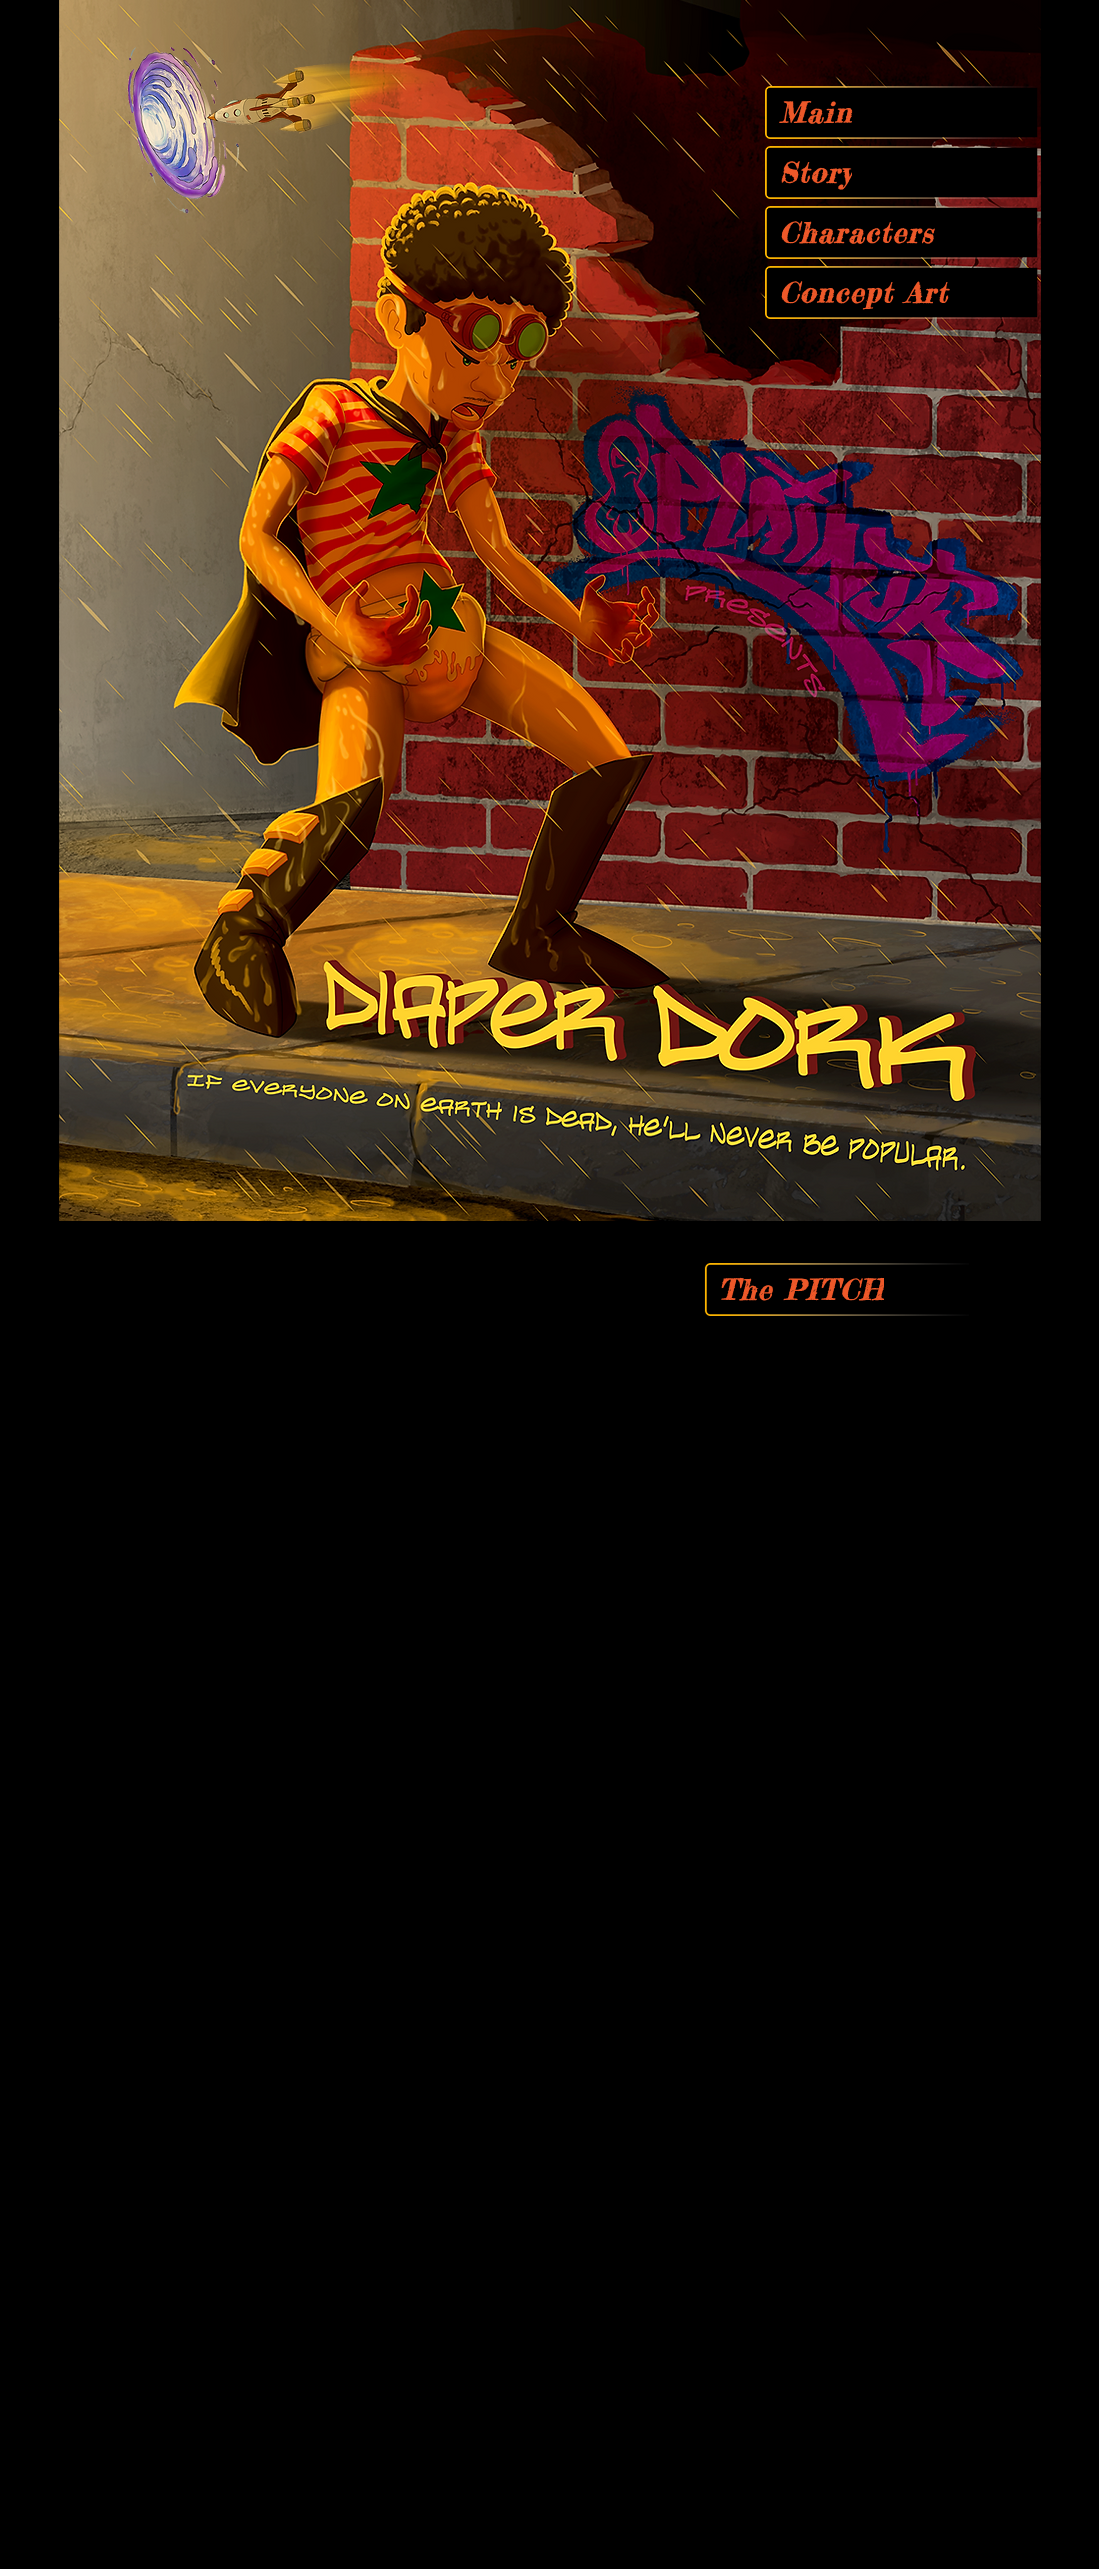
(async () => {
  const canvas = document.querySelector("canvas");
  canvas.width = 1099;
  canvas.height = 2569;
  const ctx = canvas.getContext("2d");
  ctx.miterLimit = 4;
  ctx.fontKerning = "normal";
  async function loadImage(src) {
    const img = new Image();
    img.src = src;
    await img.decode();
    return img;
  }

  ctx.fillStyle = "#000000";
  ctx.fillRect(0, 0, 1099, 2569);
  ctx.drawImage(await loadImage("img/1.png"), 59, 0, 982, 1221);
  ctx.drawImage(await loadImage("img/2.png"), 127, 46, 314, 168);
  ctx.drawImage(await loadImage("img/3.png"), 765, 86, 273, 53);
  ctx.drawImage(await loadImage("img/4.png"), 765, 146, 273, 53);
  ctx.drawImage(await loadImage("img/5.png"), 765, 206, 273, 53);
  ctx.drawImage(await loadImage("img/6.png"), 765, 266, 273, 53);
  ctx.drawImage(await loadImage("img/7.png"), 704, 1263, 265, 53);
  ctx.letterSpacing = "1.4px";
  ctx.font = "italic bold 28px Fredericka the Great";
  ctx.fillStyle = "#ed5829";
  ctx.fillText("Main", 779, 123);
  ctx.save();
  ctx.beginPath();
  ctx.rect(779, 156, 73, 34);
  ctx.clip();
  ctx.fillText("Story", 779, 183);
  ctx.restore();
  ctx.fillText("Characters", 779, 243);
  ctx.fillText("Concept Art", 779, 303);
  ctx.save();
  ctx.beginPath();
  ctx.rect(718, 1273, 166, 34);
  ctx.clip();
  ctx.fillText("The PITCH", 718, 1300);
  ctx.restore();
})();
